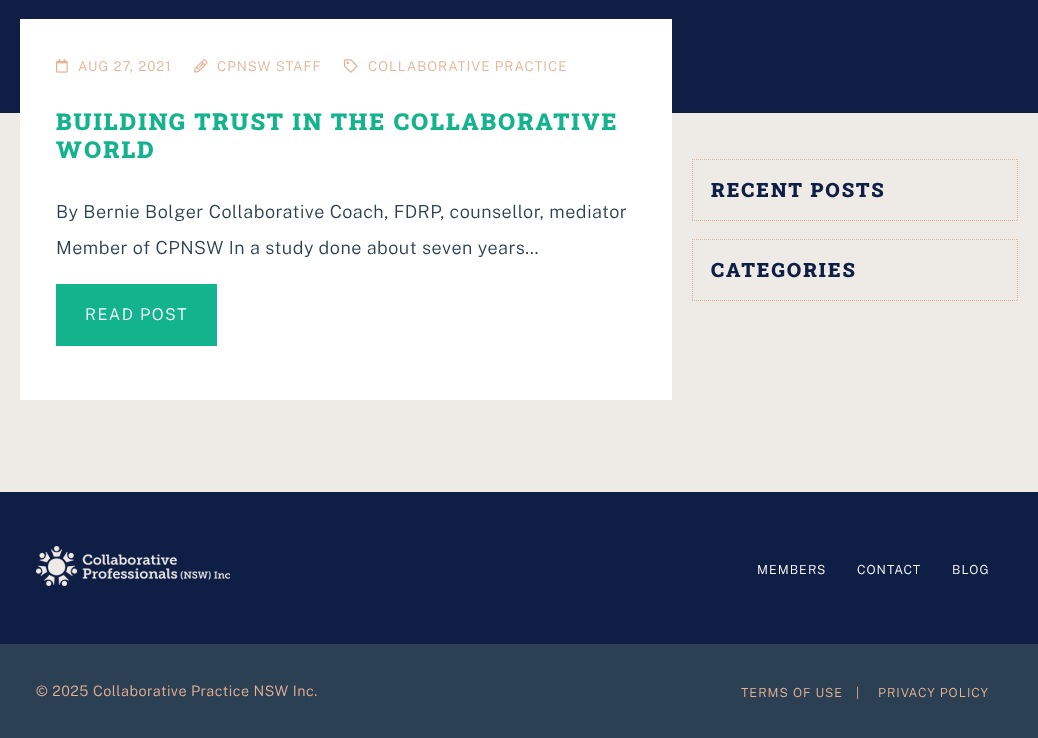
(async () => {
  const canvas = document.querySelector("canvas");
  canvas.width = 1038;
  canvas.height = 738;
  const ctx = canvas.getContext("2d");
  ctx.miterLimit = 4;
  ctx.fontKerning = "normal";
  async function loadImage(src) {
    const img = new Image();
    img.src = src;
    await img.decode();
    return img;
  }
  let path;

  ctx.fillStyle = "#eeebe7";
  ctx.fillRect(0, 0, 1038, 738);
  ctx.fillStyle = "#0f1e45";
  ctx.fillRect(0, 0, 1038, 113);
  ctx.fillStyle = "#ffffff";
  ctx.fillRect(20, 19, 652, 381);
  ctx.drawImage(await loadImage("img/1.png"), 56, 59, 12, 14);
  ctx.drawImage(await loadImage("img/2.png"), 194, 59, 14, 14);
  ctx.drawImage(await loadImage("img/3.png"), 344, 59, 14, 14);
  ctx.fillStyle = "#12b38d";
  ctx.fillRect(56, 284, 161, 62);
  path = new Path2D("M692 159.5H1018");
  ctx.strokeStyle = "#e7b397";
  ctx.setLineDash([1, 1]);
  ctx.stroke(path);
  path = new Path2D("M1017.5 159V221");
  ctx.stroke(path);
  path = new Path2D("M692 220.5H1018");
  ctx.stroke(path);
  path = new Path2D("M692.5 159V221");
  ctx.stroke(path);
  path = new Path2D("M692 239.5H1018");
  ctx.stroke(path);
  path = new Path2D("M1017.5 239V301");
  ctx.stroke(path);
  path = new Path2D("M692 300.5H1018");
  ctx.stroke(path);
  path = new Path2D("M692.5 239V301");
  ctx.stroke(path);
  ctx.fillStyle = "#0f1e45";
  ctx.fillRect(0, 492, 1038, 152);
  ctx.drawImage(await loadImage("img/4.png"), 36, 546, 194, 40);
  ctx.fillStyle = "#2c4053";
  ctx.fillRect(0, 644, 1038, 94);
  ctx.letterSpacing = "1px";
  ctx.font = "300 13.5px Public Sans";
  ctx.fillStyle = "#e7b397";
  for (const [text, x, y] of [
    ["AUG 27, 2021", 78, 71],
    ["CPNSW STAFF", 217, 71],
    ["COLLABORATIVE PRACTICE", 368, 71],
  ]) {
    ctx.fillText(text, x, y);
  }
  ctx.letterSpacing = "2px";
  ctx.font = "900 23.4px Roboto Slab";
  ctx.fillStyle = "#12b38d";
  ctx.fillText("BUILDING TRUST IN THE COLLABORATIVE", 56, 130);
  ctx.fillText("WORLD", 56, 158);
  ctx.letterSpacing = "0.5px";
  ctx.font = "300 18px Public Sans";
  ctx.fillStyle = "#2c4053";
  ctx.fillText("By Bernie Bolger Collaborative Coach, FDRP, counsellor, mediator", 56, 218);
  ctx.fillText("Member of CPNSW In a study done about seven years…", 56, 254);
  ctx.letterSpacing = "1.5px";
  ctx.font = "300 16.25px Public Sans";
  ctx.fillStyle = "#ffffff";
  ctx.fillText("READ POST", 85, 320);
  ctx.letterSpacing = "2px";
  ctx.font = "900 19.75px Roboto Slab";
  ctx.fillStyle = "#0f1e45";
  ctx.fillText("RECENT POSTS", 711, 197);
  ctx.fillText("CATEGORIES", 711, 277);
  ctx.letterSpacing = "1px";
  ctx.font = "300 12.5px Public Sans";
  ctx.fillStyle = "#ffffff";
  for (const [text, x, y] of [
    ["MEMBERS", 757, 574],
    ["CONTACT", 857, 574],
    ["BLOG", 952, 574],
  ]) {
    ctx.fillText(text, x, y);
  }
  ctx.letterSpacing = "0.5px";
  ctx.font = "300 14.4px Public Sans";
  ctx.fillStyle = "#e7b397";
  ctx.fillText("© 2025 Collaborative Practice NSW Inc.", 36, 696);
  ctx.letterSpacing = "1px";
  ctx.font = "300 12.5px Public Sans";
  ctx.fillText("TERMS OF USE", 741, 697);
  ctx.letterSpacing = "0.5px";
  ctx.fillText("|", 856, 697);
  ctx.letterSpacing = "1px";
  ctx.fillText("PRIVACY POLICY", 878, 697);
})();
